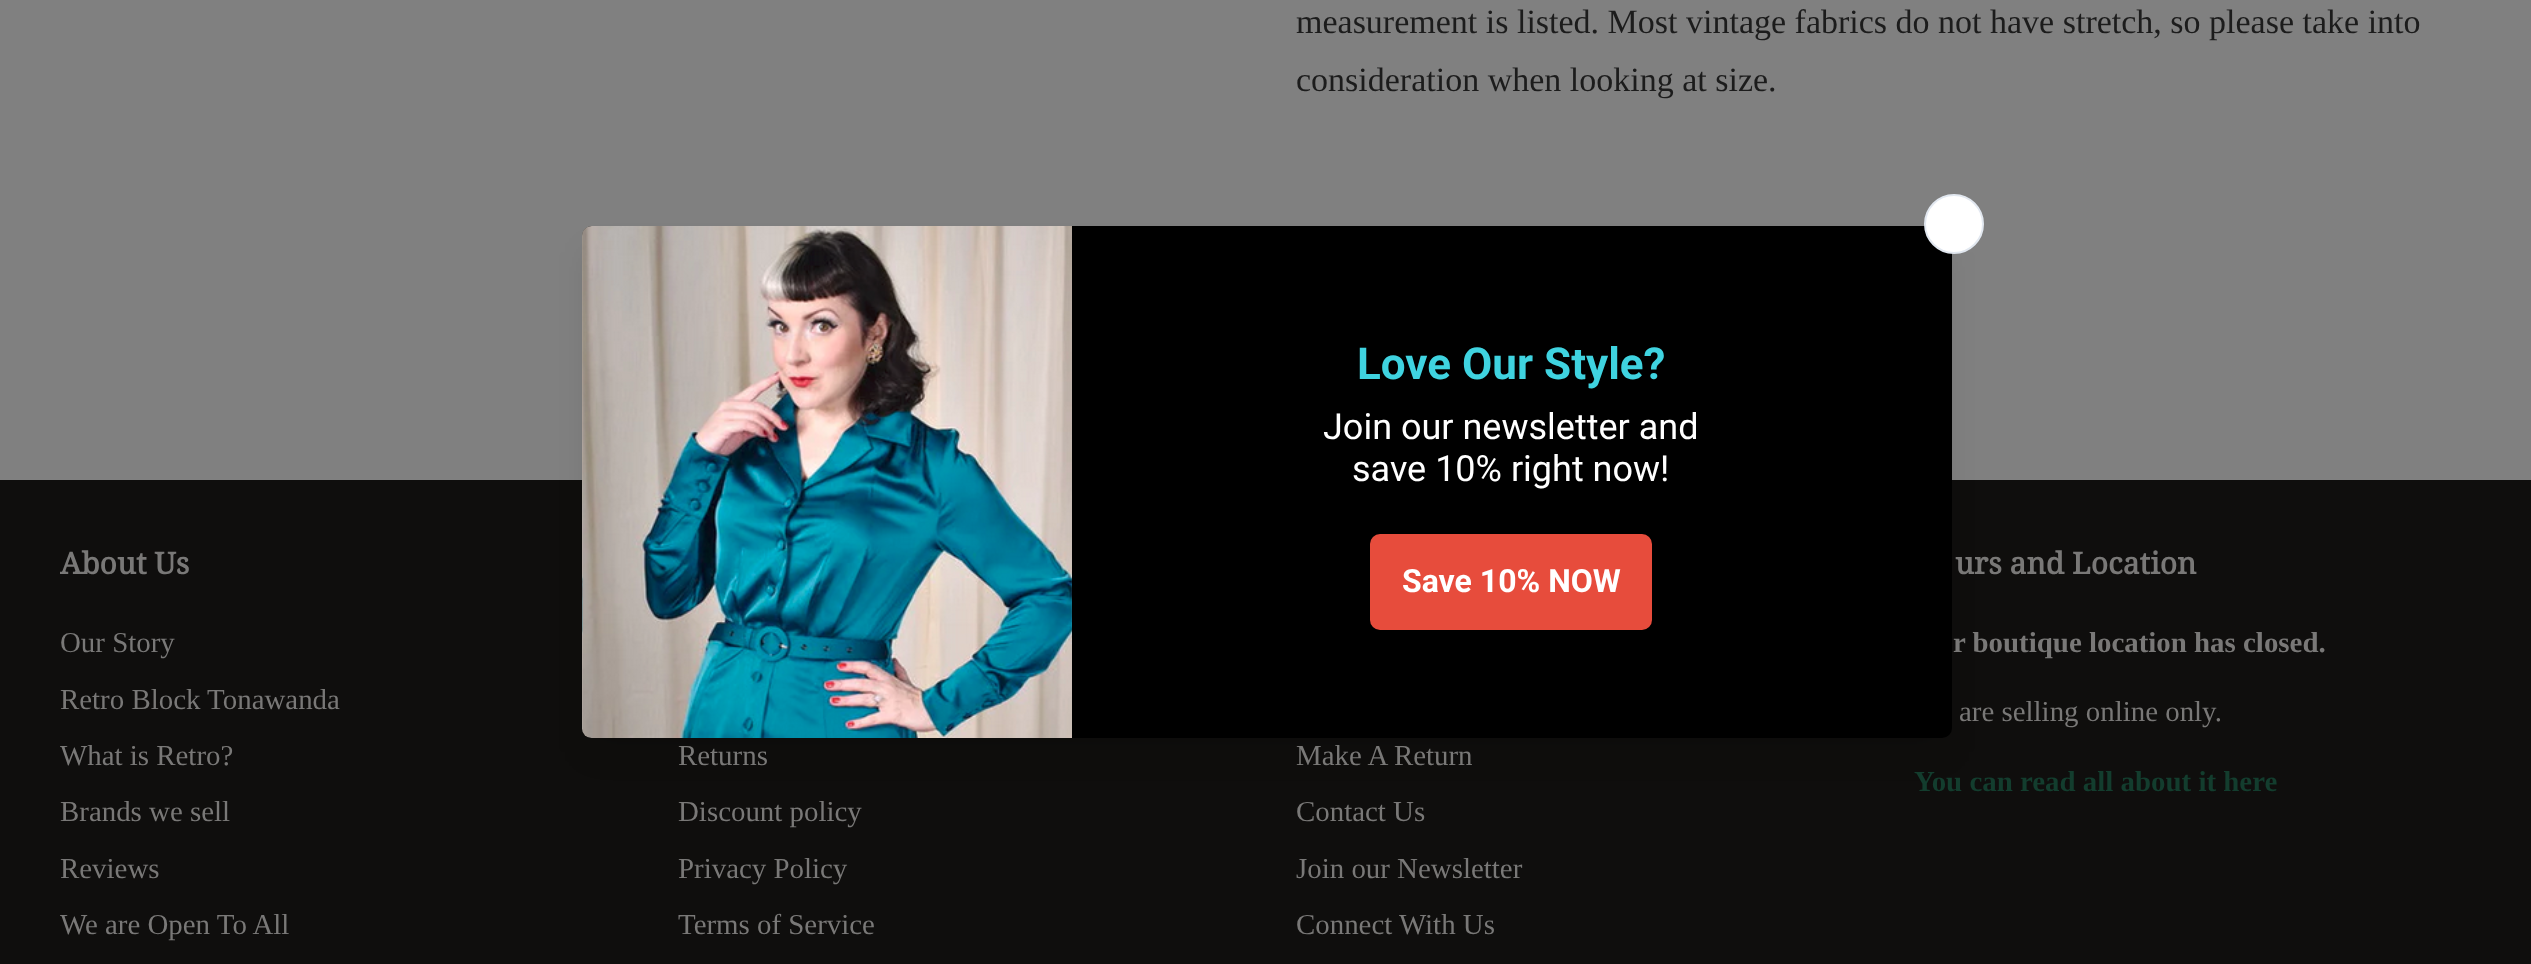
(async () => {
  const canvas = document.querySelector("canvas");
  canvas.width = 2531;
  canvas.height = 964;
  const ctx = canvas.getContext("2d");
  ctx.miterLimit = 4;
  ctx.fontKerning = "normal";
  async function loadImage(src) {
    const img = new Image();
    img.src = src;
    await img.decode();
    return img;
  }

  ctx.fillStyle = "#808080";
  ctx.fillRect(0, 0, 2531, 964);
  ctx.fillStyle = "#0f0e0d";
  ctx.fillRect(0, 480, 2531, 484);
  ctx.fillStyle = "rgba(0, 0, 0, 0.1)";
  ctx.filter = "blur(15px)";
  ctx.beginPath();
  ctx.roundRect(588, 252, 1358, 500, 4);
  ctx.fill();
  ctx.filter = "none";
  ctx.fillStyle = "#000000";
  ctx.beginPath();
  ctx.roundRect(582, 226, 1370, 512, 10);
  ctx.fill();
  ctx.fillStyle = "#ffffff";
  ctx.beginPath();
  ctx.arc(1954, 224, 29, 0, Math.PI * 2);
  ctx.fill();
  ctx.strokeStyle = "#e2e8f0";
  ctx.lineWidth = 2;
  ctx.stroke();
  ctx.drawImage(await loadImage("img/1.png"), 582, 226, 490, 512);
  ctx.fillStyle = "#e74c3c";
  ctx.beginPath();
  ctx.roundRect(1370, 534, 282, 96, 10);
  ctx.fill();
  ctx.font = "34px Liberation Serif";
  ctx.fillStyle = "#1c1c1c";
  ctx.fillText("measurement is listed. Most vintage fabrics do not have stretch, so please take into", 1296, 33);
  ctx.fillText("consideration when looking at size.", 1296, 91);
  ctx.font = "bold 44px Roboto";
  ctx.fillStyle = "#3fd3e0";
  ctx.fillText("Love Our Style?", 1357, 379);
  ctx.font = "36px Roboto";
  ctx.fillStyle = "#ffffff";
  ctx.fillText("Join our newsletter and", 1323, 439);
  ctx.fillText("save 10% right now!", 1352, 481);
  ctx.font = "bold 32px Roboto";
  ctx.fillText("Save 10% NOW", 1402, 592);
  ctx.font = "bold 30px Droid Serif";
  ctx.fillStyle = "#797877";
  ctx.fillText("About Us", 60, 574);
  ctx.font = "28.9px Liberation Serif";
  for (const [text, x, y] of [
    ["Our Story", 60, 652],
    ["Retro Block Tonawanda", 60, 709],
    ["What is Retro?", 60, 765],
    ["Brands we sell", 60, 821],
    ["Reviews", 60, 878],
    ["We are Open To All", 60, 934],
  ]) {
    ctx.fillText(text, x, y);
  }
  ctx.font = "bold 30px Droid Serif";
  ctx.fillText("urs and Location", 1955, 574);
  ctx.font = "bold 28.9px Liberation Serif";
  ctx.fillText("r boutique location has closed.", 1953, 652);
  ctx.font = "28.9px Liberation Serif";
  ctx.fillText("are selling online only.", 1959, 721);
  ctx.font = "bold 28.9px Liberation Serif";
  ctx.fillStyle = "#133d2e";
  ctx.fillText("You can read all about it here", 1914, 791);
  ctx.font = "28.9px Liberation Serif";
  ctx.fillStyle = "#797877";
  for (const [text, x, y] of [
    ["Returns", 678, 765],
    ["Discount policy", 678, 821],
    ["Privacy Policy", 678, 878],
    ["Terms of Service", 678, 934],
    ["Make A Return", 1296, 765],
    ["Contact Us", 1296, 821],
    ["Join our Newsletter", 1296, 878],
    ["Connect With Us", 1296, 934],
  ]) {
    ctx.fillText(text, x, y);
  }
})();
